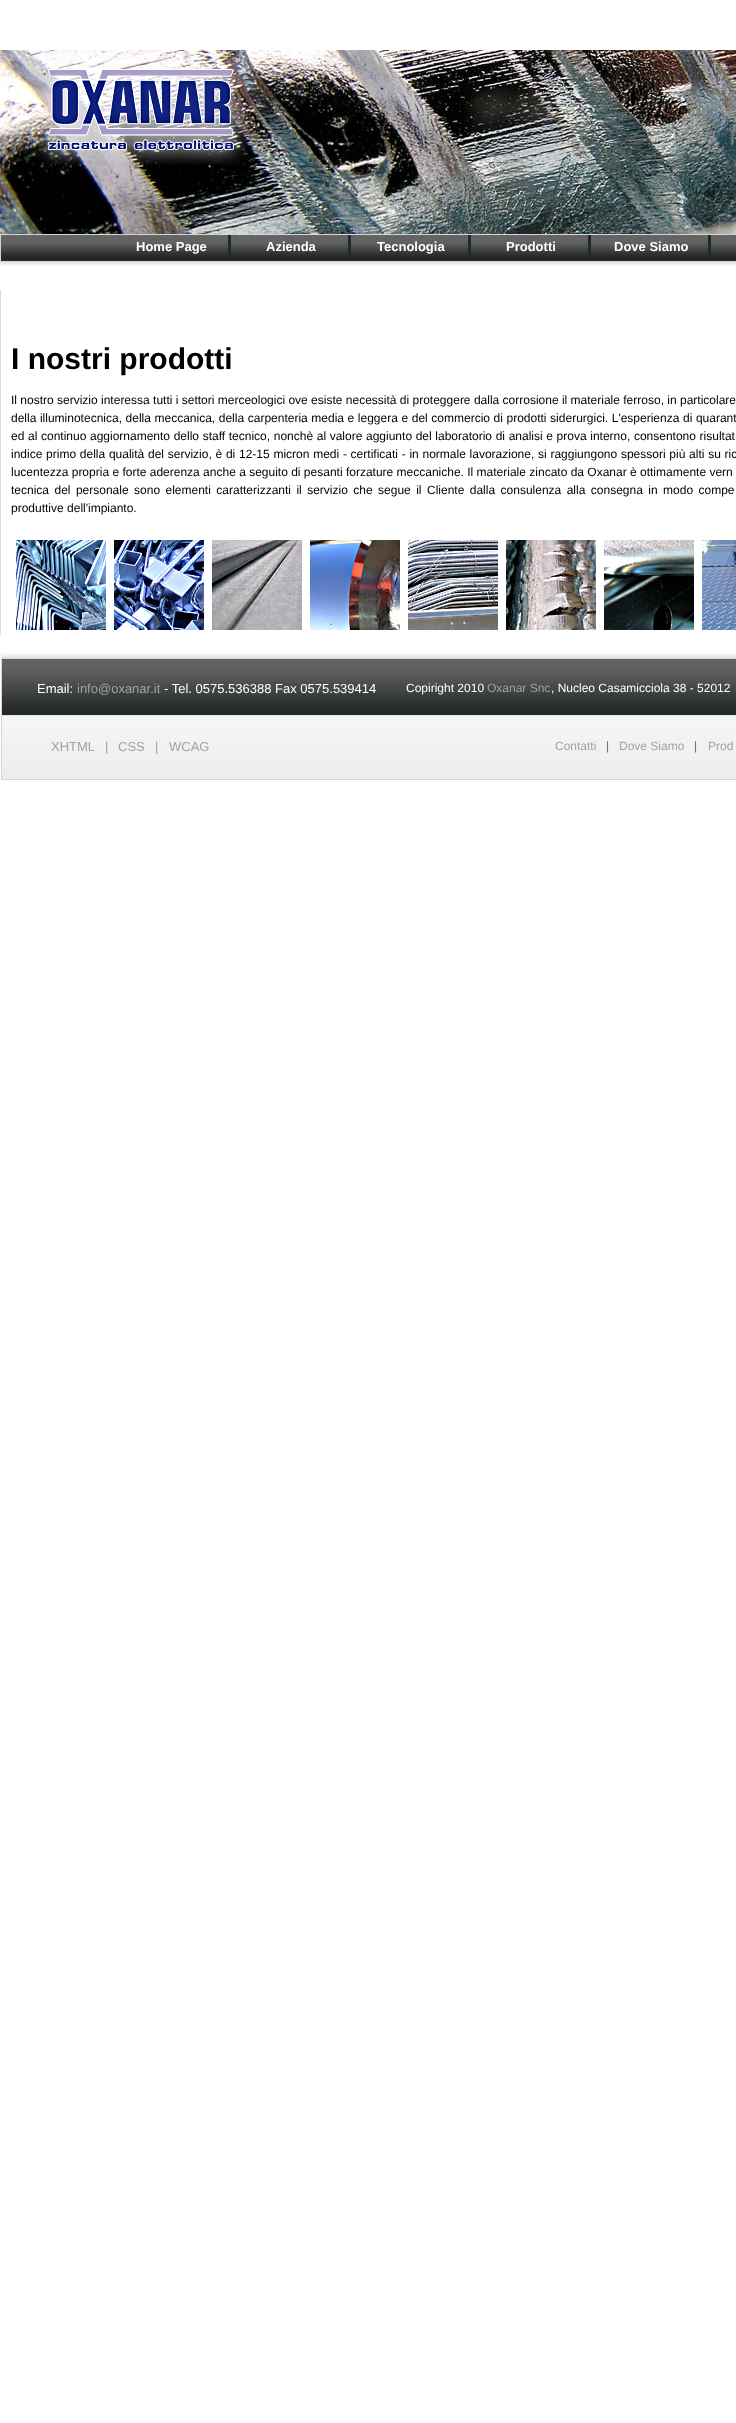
(async () => {
  const canvas = document.querySelector("canvas");
  canvas.width = 736;
  canvas.height = 2423;
  const ctx = canvas.getContext("2d");
  ctx.miterLimit = 4;
  ctx.fontKerning = "normal";
  async function loadImage(src) {
    const img = new Image();
    img.src = src;
    await img.decode();
    return img;
  }

  ctx.fillStyle = "#ffffff";
  ctx.fillRect(0, 0, 736, 2423);
  ctx.drawImage(await loadImage("img/1.png"), 0, 50, 736, 184);
  ctx.drawImage(await loadImage("img/2.png"), 34, 54, 214, 111);
  ctx.drawImage(await loadImage("img/3.png"), 1, 235, 735, 26);
  ctx.strokeStyle = "#d4d4d4";
  ctx.strokeRect(0.5, 234.5, 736, 27);
  for (const [x, y, w, h, color] of [
    [228, 235, 3, 25, "#23282a"],
    [348, 235, 3, 25, "#23282a"],
    [468, 235, 3, 25, "#23282a"],
    [588, 235, 3, 25, "#23282a"],
    [708, 235, 3, 25, "#23282a"],
  ]) {
    ctx.fillStyle = color;
    ctx.fillRect(x, y, w, h);
  }
  ctx.drawImage(await loadImage("img/4.png"), 0, 262, 736, 4);
  ctx.fillStyle = "#dddbdb";
  ctx.fillRect(0, 290, 1, 345);
  ctx.drawImage(await loadImage("img/5.png"), 16, 540, 90, 90);
  ctx.drawImage(await loadImage("img/6.png"), 114, 540, 90, 90);
  ctx.drawImage(await loadImage("img/7.png"), 212, 540, 90, 90);
  ctx.drawImage(await loadImage("img/8.png"), 310, 540, 90, 90);
  ctx.drawImage(await loadImage("img/9.png"), 408, 540, 90, 90);
  ctx.drawImage(await loadImage("img/10.png"), 506, 540, 90, 90);
  ctx.drawImage(await loadImage("img/11.png"), 604, 540, 90, 90);
  ctx.drawImage(await loadImage("img/12.png"), 702, 540, 34, 90);
  ctx.drawImage(await loadImage("img/13.png"), 1, 653, 735, 5);
  ctx.drawImage(await loadImage("img/14.png"), 2, 659, 734, 120);
  ctx.strokeRect(1.5, 658.5, 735, 121);
  ctx.font = "bold 13px Liberation Sans";
  ctx.fillStyle = "#ffffff";
  for (const [text, x, y] of [
    ["Home Page", 136, 251],
    ["Azienda", 266, 251],
    ["Tecnologia", 377, 251],
    ["Prodotti", 506, 251],
    ["Dove Siamo", 614, 251],
  ]) {
    ctx.fillText(text, x, y);
  }
  ctx.font = "bold 30px Liberation Sans";
  ctx.fillStyle = "#000000";
  ctx.fillText("I nostri prodotti", 11, 369);
  ctx.font = "12px Liberation Sans";
  ctx.fillText("Il nostro servizio interessa tutti i settori merceologici ove esiste necessità di proteggere dalla corrosione il materiale ferroso, in particolare", 11, 404);
  ctx.wordSpacing = "0.25px";
  ctx.fillText("della illuminotecnica, della meccanica, della carpenteria media e leggera e del commercio di prodotti siderurgici. L'esperienza di quarant", 11, 422);
  ctx.wordSpacing = "0.3px";
  ctx.fillText("ed al continuo aggiornamento dello staff tecnico, nonchè al valore aggiunto del laboratorio di analisi e prova interno, consentono risultat", 11, 440);
  ctx.wordSpacing = "0.4px";
  ctx.fillText("indice primo della qualità del servizio, è di 12-15 micron medi - certificati - in normale lavorazione, si raggiungono spessori più alti su ric", 11, 458);
  ctx.wordSpacing = "0px";
  ctx.fillText("lucentezza propria e forte aderenza anche a seguito di pesanti forzature meccaniche. Il materiale zincato da Oxanar è ottimamente vern", 11, 476);
  ctx.wordSpacing = "2.1px";
  ctx.fillText("tecnica del personale sono elementi caratterizzanti il servizio che segue il Cliente dalla consulenza alla consegna in modo compe", 11, 494);
  ctx.wordSpacing = "0px";
  ctx.fillText("produttive dell'impianto.", 11, 512);
  ctx.font = "13px Liberation Sans";
  ctx.fillStyle = "#ffffff";
  ctx.fillText("Email:", 37, 693);
  ctx.fillStyle = "#a2a2a2";
  ctx.fillText("info@oxanar.it", 77, 693);
  ctx.fillStyle = "#ffffff";
  ctx.fillText("- Tel. 0575.536388 Fax 0575.539414", 164, 693);
  ctx.font = "12px Liberation Sans";
  ctx.fillText("Copiright 2010", 406, 692);
  ctx.fillStyle = "#a2a2a2";
  ctx.fillText("Oxanar Snc", 487, 692);
  ctx.fillStyle = "#ffffff";
  ctx.fillText(", Nucleo Casamicciola 38 - 52012", 551, 692);
  ctx.font = "13px Liberation Sans";
  ctx.fillStyle = "#a2a2a2";
  for (const [text, x, y] of [
    ["XHTML", 51, 751],
    ["|", 105, 751],
    ["CSS", 118, 751],
    ["|", 155, 751],
    ["WCAG", 169, 751],
  ]) {
    ctx.fillText(text, x, y);
  }
  ctx.font = "12px Liberation Sans";
  ctx.fillText("Contatti", 555, 750);
  ctx.fillStyle = "#696969";
  ctx.fillText("|", 606, 750);
  ctx.fillStyle = "#a2a2a2";
  ctx.fillText("Dove Siamo", 619, 750);
  ctx.fillStyle = "#696969";
  ctx.fillText("|", 694, 750);
  ctx.fillStyle = "#a2a2a2";
  ctx.fillText("Prod", 708, 750);
})();
